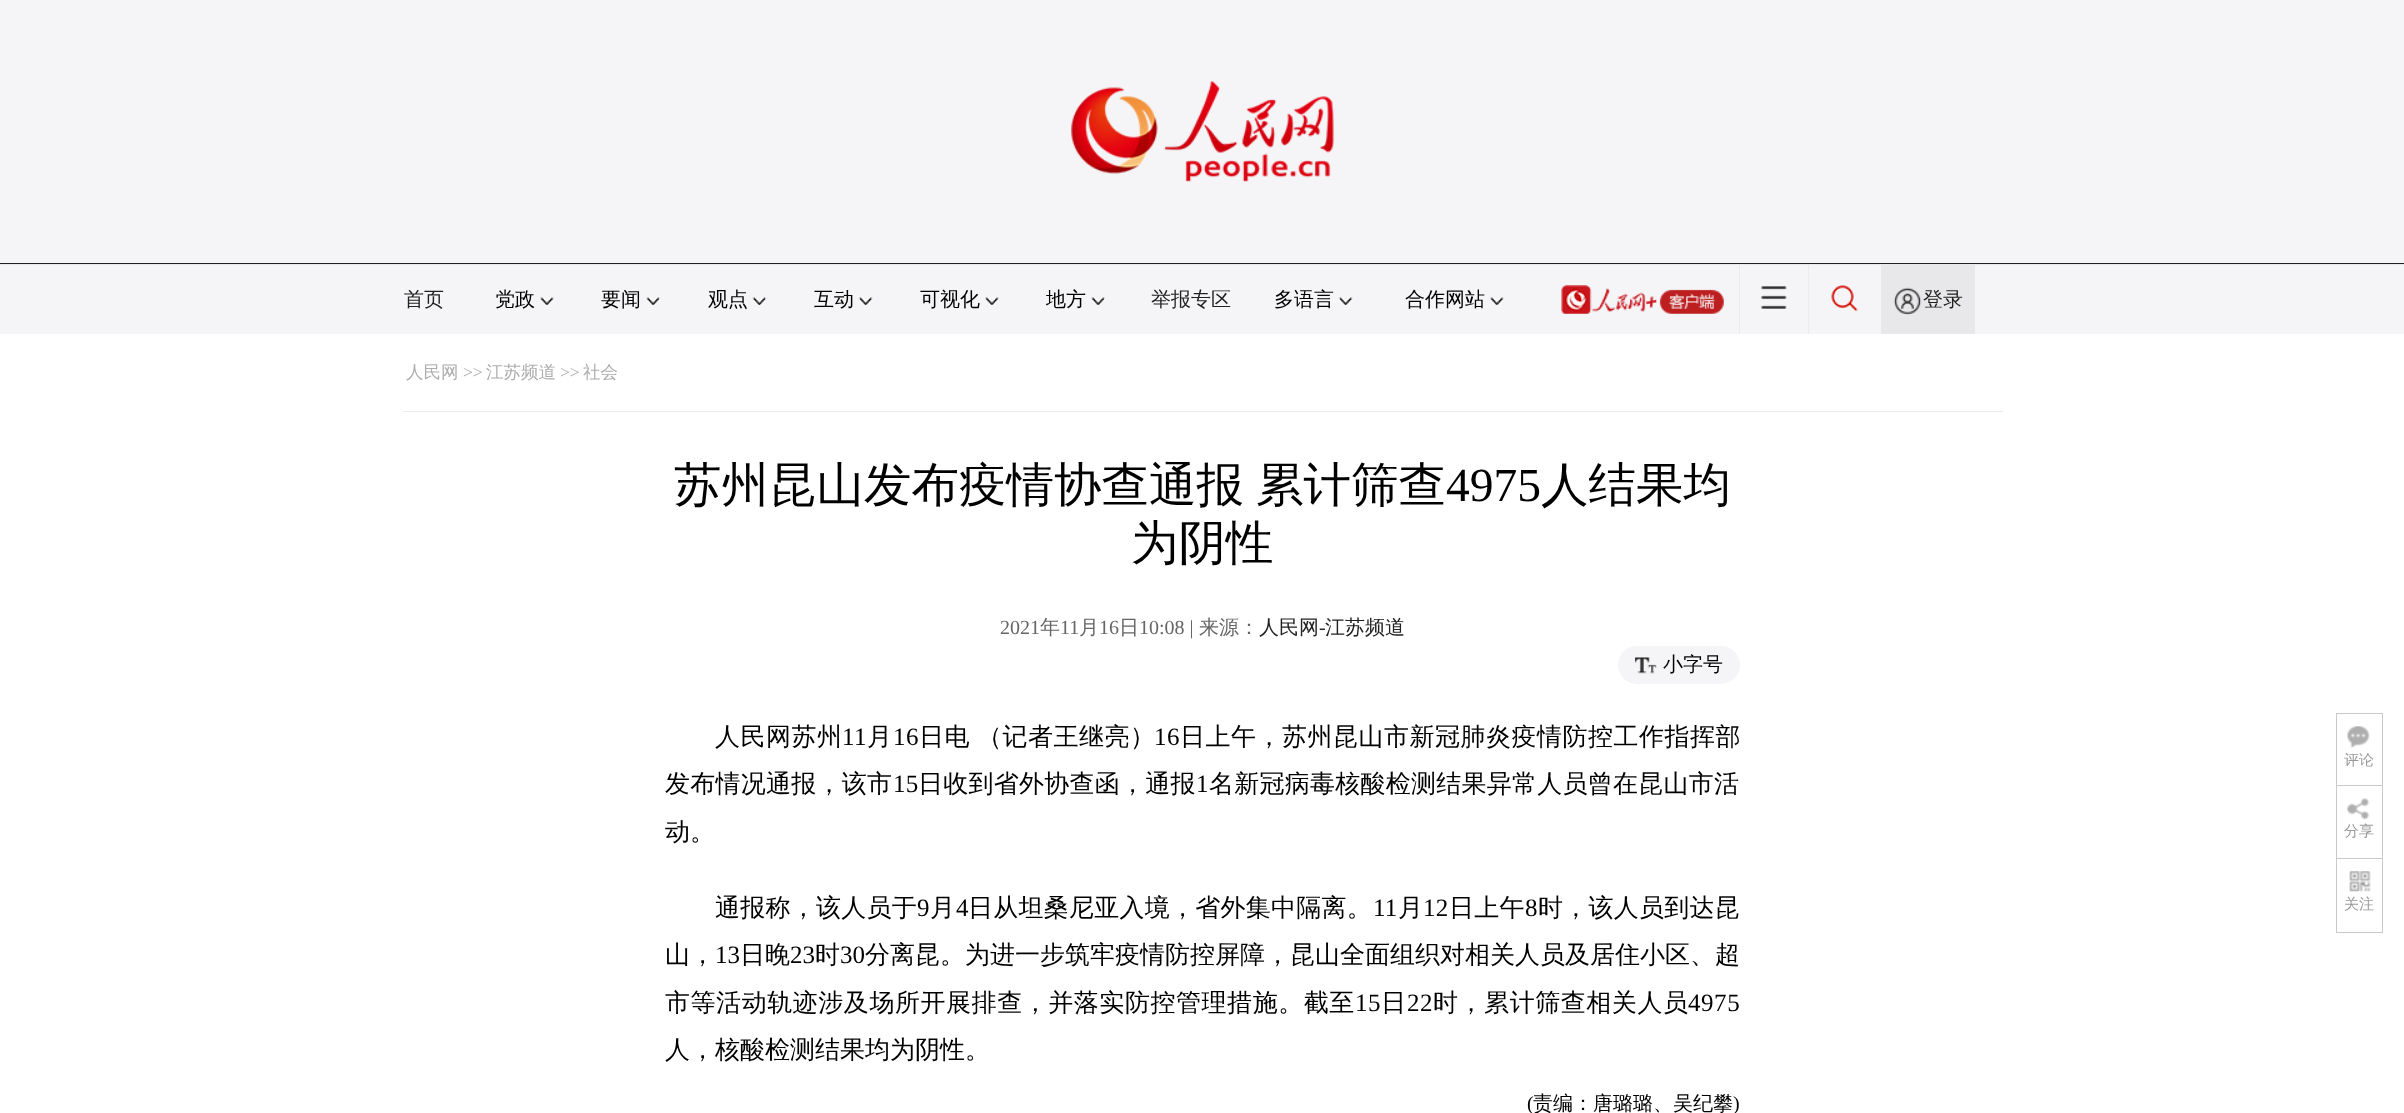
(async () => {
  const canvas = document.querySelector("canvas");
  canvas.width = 2404;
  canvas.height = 1113;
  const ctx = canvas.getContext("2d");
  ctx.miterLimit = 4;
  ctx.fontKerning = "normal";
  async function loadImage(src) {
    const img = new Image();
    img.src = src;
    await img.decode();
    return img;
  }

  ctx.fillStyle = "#ffffff";
  ctx.fillRect(0, 0, 2404, 1113);
  ctx.fillStyle = "#f5f5f7";
  ctx.fillRect(0, 0, 2404, 263);
  ctx.fillStyle = "#212121";
  ctx.fillRect(0, 263, 2404, 1);
  ctx.drawImage(await loadImage("img/1.png"), 1071, 81, 263, 101);
  ctx.fillStyle = "#e9e9e9";
  ctx.fillRect(0, 264, 2404, 1);
  ctx.fillStyle = "#f5f5f7";
  ctx.fillRect(0, 265, 2404, 69);
  ctx.drawImage(await loadImage("img/2.png"), 540, 297, 14, 8);
  ctx.drawImage(await loadImage("img/3.png"), 646, 297, 14, 8);
  ctx.drawImage(await loadImage("img/4.png"), 752, 297, 15, 8);
  ctx.drawImage(await loadImage("img/5.png"), 858, 297, 15, 8);
  ctx.drawImage(await loadImage("img/2.png"), 985, 297, 14, 8);
  ctx.drawImage(await loadImage("img/3.png"), 1091, 297, 14, 8);
  ctx.drawImage(await loadImage("img/6.png"), 1338, 297, 15, 8);
  ctx.drawImage(await loadImage("img/7.png"), 1490, 297, 14, 8);
  ctx.drawImage(await loadImage("img/8.png"), 1561, 285, 163, 29);
  ctx.fillStyle = "#ebebed";
  ctx.fillRect(1808, 265, 1, 69);
  ctx.fillRect(1739, 265, 1, 69);
  ctx.drawImage(await loadImage("img/9.png"), 1761, 286, 26, 23);
  ctx.drawImage(await loadImage("img/10.png"), 1831, 285, 27, 27);
  ctx.fillStyle = "#e8e8ea";
  ctx.fillRect(1881, 265, 94, 69);
  ctx.drawImage(await loadImage("img/11.png"), 1893, 287, 29, 28);
  ctx.fillStyle = "#ececec";
  ctx.fillRect(403, 411, 1600, 1);
  ctx.fillStyle = "#f5f5f7";
  ctx.beginPath();
  ctx.roundRect(1618, 646, 122, 38, 19);
  ctx.fill();
  ctx.drawImage(await loadImage("img/12.png"), 1635, 657, 22, 17);
  ctx.save();
  ctx.beginPath();
  ctx.rect(2336, 713, 47, 72);
  ctx.clip();
  ctx.strokeStyle = "#c9c9c9";
  ctx.strokeRect(2336.5, 713.5, 46, 75);
  ctx.restore();
  ctx.drawImage(await loadImage("img/13.png"), 2347, 726, 23, 22);
  ctx.save();
  ctx.beginPath();
  ctx.rect(2336, 785, 47, 73);
  ctx.clip();
  ctx.strokeStyle = "#c9c9c9";
  ctx.strokeRect(2336.5, 785.5, 46, 74);
  ctx.restore();
  ctx.drawImage(await loadImage("img/14.png"), 2347, 798, 23, 22);
  ctx.strokeStyle = "#c9c9c9";
  ctx.strokeRect(2336.5, 858.5, 46, 74);
  ctx.drawImage(await loadImage("img/15.png"), 2349, 871, 22, 21);
  ctx.font = "500 20px WenQuanYi Zen Hei";
  ctx.fillStyle = "#212121";
  ctx.fillText("首页", 404, 306);
  ctx.fillStyle = "#000000";
  for (const [text, x, y] of [
    ["党政", 495, 306],
    ["要闻", 601, 306],
    ["观点", 708, 306],
    ["互动", 814, 306],
    ["可视化", 920, 306],
    ["地方", 1046, 306],
  ]) {
    ctx.fillText(text, x, y);
  }
  ctx.fillStyle = "#212121";
  ctx.fillText("举报专区", 1151, 306);
  ctx.fillStyle = "#000000";
  ctx.fillText("多语言", 1274, 306);
  ctx.fillText("合作网站", 1405, 306);
  ctx.fillStyle = "#212121";
  ctx.fillText("登录", 1923, 306);
  ctx.font = "500 17.5px WenQuanYi Zen Hei";
  ctx.fillStyle = "#adadad";
  ctx.fillText("人民网", 406, 378);
  ctx.font = "17.5px Liberation Serif";
  ctx.fillText(">>", 463, 378);
  ctx.font = "500 17.5px WenQuanYi Zen Hei";
  ctx.fillText("江苏频道", 486, 378);
  ctx.font = "17.5px Liberation Serif";
  ctx.fillText(">>", 560, 378);
  ctx.font = "500 17.5px WenQuanYi Zen Hei";
  ctx.fillText("社会", 583, 378);
  ctx.font = "500 47.5px WenQuanYi Zen Hei";
  ctx.fillStyle = "#000000";
  ctx.fillText("苏州昆山发布疫情协查通报", 674, 501);
  ctx.fillText("累计筛查", 1256, 501);
  ctx.font = "47.5px Liberation Serif";
  ctx.fillText("4975", 1446, 501);
  ctx.font = "500 47.5px WenQuanYi Zen Hei";
  ctx.fillText("人结果均", 1541, 501);
  ctx.fillText("为阴性", 1131, 559);
  ctx.font = "20px Liberation Serif";
  ctx.fillStyle = "#666666";
  ctx.fillText("2021", 1000, 634);
  ctx.font = "500 20px WenQuanYi Zen Hei";
  ctx.fillText("年", 1040, 634);
  ctx.font = "20px Liberation Serif";
  ctx.fillText("11", 1060, 634);
  ctx.font = "500 20px WenQuanYi Zen Hei";
  ctx.fillText("月", 1079, 634);
  ctx.font = "20px Liberation Serif";
  ctx.fillText("16", 1099, 634);
  ctx.font = "500 20px WenQuanYi Zen Hei";
  ctx.fillText("日", 1119, 634);
  ctx.font = "20px Liberation Serif";
  ctx.fillText("10:08 |", 1139, 634);
  ctx.font = "500 20px WenQuanYi Zen Hei";
  ctx.fillText("来源：", 1199, 634);
  ctx.fillStyle = "#212121";
  ctx.fillText("人民网", 1259, 634);
  ctx.font = "20px Liberation Serif";
  ctx.fillText("-", 1319, 634);
  ctx.font = "500 20px WenQuanYi Zen Hei";
  ctx.fillText("江苏频道", 1325, 634);
  ctx.fillStyle = "#000000";
  ctx.fillText("小字号", 1663, 671);
  ctx.letterSpacing = "0.5px";
  ctx.font = "500 25px WenQuanYi Zen Hei";
  ctx.fillText("人民网苏州", 715, 745);
  ctx.font = "25px Liberation Serif";
  ctx.fillText("11", 842, 745);
  ctx.font = "500 25px WenQuanYi Zen Hei";
  ctx.fillText("月", 867, 745);
  ctx.font = "25px Liberation Serif";
  ctx.fillText("16", 893, 745);
  ctx.wordSpacing = "-1px";
  ctx.font = "500 25px WenQuanYi Zen Hei";
  ctx.fillText("日电 （记者王继亮）", 919, 745);
  ctx.wordSpacing = "0px";
  ctx.font = "25px Liberation Serif";
  ctx.fillText("16", 1154, 745);
  ctx.font = "500 25px WenQuanYi Zen Hei";
  ctx.fillText("日上午，苏州昆山市新冠肺炎疫情防控工作指挥部", 1180, 745);
  ctx.letterSpacing = "0.25px";
  ctx.fillText("发布情况通报，该市", 665, 792);
  ctx.font = "25px Liberation Serif";
  ctx.fillText("15", 893, 792);
  ctx.font = "500 25px WenQuanYi Zen Hei";
  ctx.fillText("日收到省外协查函，通报", 918, 792);
  ctx.font = "25px Liberation Serif";
  ctx.fillText("1", 1196, 792);
  ctx.font = "500 25px WenQuanYi Zen Hei";
  ctx.fillText("名新冠病毒核酸检测结果异常人员曾在昆山市活", 1209, 792);
  ctx.letterSpacing = "0px";
  ctx.fillText("动。", 665, 840);
  ctx.letterSpacing = "0.25px";
  ctx.fillText("通报称，该人员于", 715, 916);
  ctx.font = "25px Liberation Serif";
  ctx.fillText("9", 917, 916);
  ctx.font = "500 25px WenQuanYi Zen Hei";
  ctx.fillText("月", 930, 916);
  ctx.font = "25px Liberation Serif";
  ctx.fillText("4", 956, 916);
  ctx.font = "500 25px WenQuanYi Zen Hei";
  ctx.fillText("日从坦桑尼亚入境，省外集中隔离。", 968, 916);
  ctx.font = "25px Liberation Serif";
  ctx.fillText("11", 1373, 916);
  ctx.font = "500 25px WenQuanYi Zen Hei";
  ctx.fillText("月", 1398, 916);
  ctx.font = "25px Liberation Serif";
  ctx.fillText("12", 1423, 916);
  ctx.font = "500 25px WenQuanYi Zen Hei";
  ctx.fillText("日上午", 1449, 916);
  ctx.font = "25px Liberation Serif";
  ctx.fillText("8", 1525, 916);
  ctx.font = "500 25px WenQuanYi Zen Hei";
  ctx.fillText("时，该人员到达昆", 1538, 916);
  ctx.letterSpacing = "0px";
  ctx.fillText("山，", 665, 963);
  ctx.font = "25px Liberation Serif";
  ctx.fillText("13", 715, 963);
  ctx.font = "500 25px WenQuanYi Zen Hei";
  ctx.fillText("日晚", 740, 963);
  ctx.font = "25px Liberation Serif";
  ctx.fillText("23", 790, 963);
  ctx.font = "500 25px WenQuanYi Zen Hei";
  ctx.fillText("时", 815, 963);
  ctx.font = "25px Liberation Serif";
  ctx.fillText("30", 840, 963);
  ctx.font = "500 25px WenQuanYi Zen Hei";
  ctx.fillText("分离昆。为进一步筑牢疫情防控屏障，昆山全面组织对相关人员及居住小区、超", 865, 963);
  ctx.letterSpacing = "0.55px";
  ctx.fillText("市等活动轨迹涉及场所开展排查，并落实防控管理措施。截至", 665, 1011);
  ctx.font = "25px Liberation Serif";
  ctx.fillText("15", 1355, 1011);
  ctx.font = "500 25px WenQuanYi Zen Hei";
  ctx.fillText("日", 1381, 1011);
  ctx.font = "25px Liberation Serif";
  ctx.fillText("22", 1407, 1011);
  ctx.font = "500 25px WenQuanYi Zen Hei";
  ctx.fillText("时，累计筛查相关人员", 1433, 1011);
  ctx.font = "25px Liberation Serif";
  ctx.fillText("4975", 1688, 1011);
  ctx.letterSpacing = "0px";
  ctx.font = "500 25px WenQuanYi Zen Hei";
  ctx.fillText("人，核酸检测结果均为阴性。", 665, 1058);
  ctx.font = "20px Liberation Serif";
  ctx.fillText("(", 1527, 1110);
  ctx.font = "500 20px WenQuanYi Zen Hei";
  ctx.fillText("责编：唐璐璐、吴纪攀", 1533, 1110);
  ctx.font = "20px Liberation Serif";
  ctx.fillText(")", 1733, 1110);
  ctx.font = "500 15px WenQuanYi Zen Hei";
  ctx.fillStyle = "#999999";
  for (const [text, x, y] of [
    ["评论", 2344, 765],
    ["分享", 2344, 836],
    ["关注", 2344, 909],
  ]) {
    ctx.fillText(text, x, y);
  }
})();
